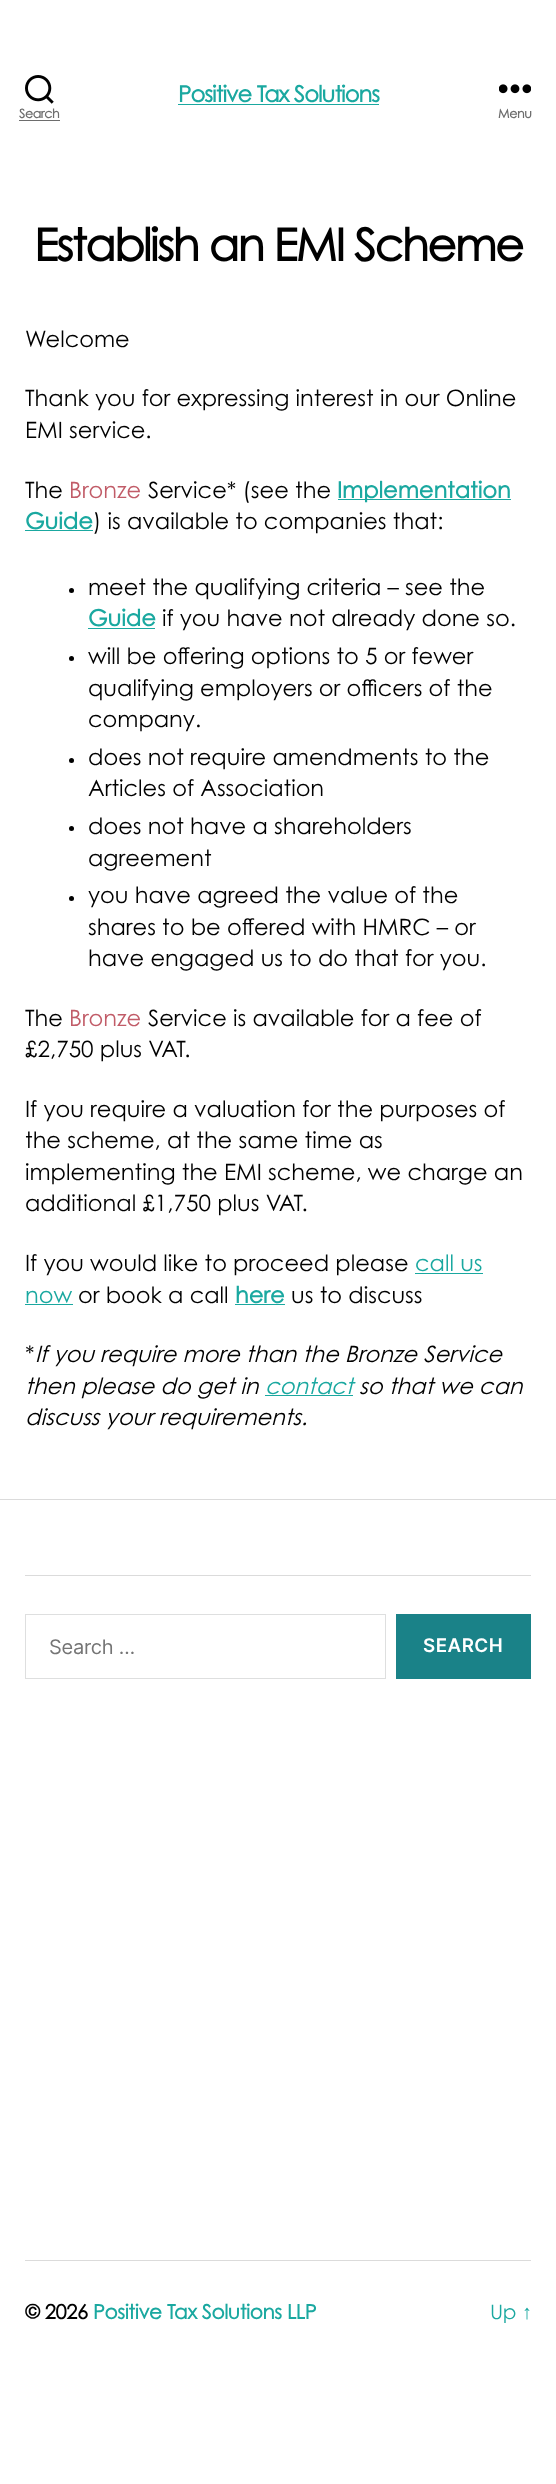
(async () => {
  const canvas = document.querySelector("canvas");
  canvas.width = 556;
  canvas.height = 2484;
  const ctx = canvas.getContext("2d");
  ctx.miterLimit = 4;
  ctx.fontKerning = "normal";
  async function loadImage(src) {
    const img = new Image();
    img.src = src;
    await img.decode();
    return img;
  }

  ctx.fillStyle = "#ffffff";
  ctx.fillRect(0, 0, 556, 2484);
  ctx.fillStyle = "#1aa8a0";
  ctx.fillRect(178, 104, 201, 1);
  ctx.drawImage(await loadImage("img/1.png"), 25, 75, 29, 29);
  ctx.fillStyle = "#6d6d6d";
  ctx.fillRect(19, 120, 41, 1);
  ctx.drawImage(await loadImage("img/2.png"), 499, 84, 32, 10);
  ctx.fillStyle = "#1aa8a0";
  ctx.fillRect(338, 499, 173, 1);
  ctx.fillRect(25, 530, 68, 1);
  ctx.fillStyle = "#000000";
  ctx.beginPath();
  ctx.arc(71.5, 590.5, 2.5, 0, Math.PI * 2);
  ctx.fill();
  ctx.fillStyle = "#1aa8a0";
  ctx.fillRect(88, 628, 67, 1);
  ctx.fillStyle = "#000000";
  ctx.beginPath();
  ctx.arc(71.5, 658.5, 2.5, 0, Math.PI * 2);
  ctx.fill();
  ctx.beginPath();
  ctx.arc(71.5, 760.5, 2.5, 0, Math.PI * 2);
  ctx.fill();
  ctx.beginPath();
  ctx.arc(71.5, 828.5, 2.5, 0, Math.PI * 2);
  ctx.fill();
  ctx.beginPath();
  ctx.arc(71.5, 898.5, 2.5, 0, Math.PI * 2);
  ctx.fill();
  for (const [x, y, w, h, color] of [
    [415, 1273, 68, 1, "#1aa8a0"],
    [25, 1304, 48, 1, "#1aa8a0"],
    [235, 1304, 50, 1, "#1aa8a0"],
    [265, 1395, 88, 1, "#1aa8a0"],
    [0, 1499, 556, 1, "#dbdbdb"],
    [25, 1575, 506, 1, "#dbdbdb"],
    [25, 2260, 506, 1, "#dbdbdb"],
  ]) {
    ctx.fillStyle = color;
    ctx.fillRect(x, y, w, h);
  }
  ctx.strokeStyle = "#dedfdf";
  ctx.strokeRect(25.5, 1614.5, 360, 64);
  ctx.fillStyle = "#1a8288";
  ctx.fillRect(396, 1614, 135, 65);
  ctx.letterSpacing = "-0.9px";
  ctx.font = "bold 22.5px Century Gothic";
  ctx.fillStyle = "#1aa8a0";
  ctx.fillText("Positive Tax Solutions", 178, 102);
  ctx.letterSpacing = "-0.35px";
  ctx.font = "bold 12.5px Century Gothic";
  ctx.fillStyle = "#6d6d6d";
  ctx.fillText("Search", 19, 118);
  ctx.fillText("Menu", 498, 118);
  ctx.letterSpacing = "-1.9px";
  ctx.font = "bold 45px Century Gothic";
  ctx.fillStyle = "#000000";
  ctx.fillText("Establish an EMI Scheme", 34, 261);
  ctx.letterSpacing = "0px";
  ctx.font = "22.5px Century Gothic";
  for (const [text, x, y] of [
    ["Welcome", 25, 347],
    ["Thank you for expressing interest in our Online", 25, 406],
    ["EMI service.", 25, 438],
    ["The", 25, 498],
  ]) {
    ctx.fillText(text, x, y);
  }
  ctx.fillStyle = "#c15c68";
  ctx.fillText("Bronze", 69, 498);
  ctx.fillStyle = "#000000";
  ctx.fillText("Service* (see the", 148, 498);
  ctx.font = "bold 22.5px Century Gothic";
  ctx.fillStyle = "#1aa8a0";
  ctx.fillText("Implementation", 337, 498);
  ctx.fillText("Guide", 25, 529);
  ctx.font = "22.5px Century Gothic";
  ctx.fillStyle = "#000000";
  ctx.fillText(") is available to companies that:", 93, 529);
  ctx.fillText("meet the qualifying criteria – see the", 88, 595);
  ctx.font = "bold 22.5px Century Gothic";
  ctx.fillStyle = "#1aa8a0";
  ctx.fillText("Guide", 88, 626);
  ctx.font = "22.5px Century Gothic";
  ctx.fillStyle = "#000000";
  for (const [text, x, y] of [
    ["if you have not already done so.", 162, 626],
    ["will be offering options to 5 or fewer", 88, 664],
    ["qualifying employers or officers of the", 88, 696],
    ["company.", 88, 727],
    ["does not require amendments to the", 88, 765],
    ["Articles of Association", 88, 796],
    ["does not have a shareholders", 88, 834],
    ["agreement", 88, 866],
    ["you have agreed the value of the", 88, 903],
    ["shares to be offered with HMRC – or", 88, 935],
    ["have engaged us to do that for you.", 88, 966],
    ["The", 25, 1026],
  ]) {
    ctx.fillText(text, x, y);
  }
  ctx.fillStyle = "#c15c68";
  ctx.fillText("Bronze", 69, 1026);
  ctx.fillStyle = "#000000";
  for (const [text, x, y] of [
    ["Service is available for a fee of", 148, 1026],
    ["£2,750 plus VAT.", 25, 1057],
    ["If you require a valuation for the purposes of", 25, 1117],
    ["the scheme, at the same time as", 25, 1148],
    ["implementing the EMI scheme, we charge an", 25, 1180],
    ["additional £1,750 plus VAT.", 25, 1211],
    ["If you would like to proceed please", 25, 1271],
  ]) {
    ctx.fillText(text, x, y);
  }
  ctx.fillStyle = "#1aa8a0";
  ctx.fillText("call us", 415, 1271);
  ctx.fillText("now", 25, 1303);
  ctx.fillStyle = "#000000";
  ctx.fillText("or book a call", 78, 1303);
  ctx.font = "bold 22.5px Century Gothic";
  ctx.fillStyle = "#1aa8a0";
  ctx.fillText("here", 235, 1303);
  ctx.font = "22.5px Century Gothic";
  ctx.fillStyle = "#000000";
  ctx.fillText("us to discuss", 291, 1303);
  ctx.fillText("*", 25, 1362);
  ctx.font = "italic 22.5px Century Gothic";
  ctx.fillText("If you require more than the Bronze Service", 35, 1362);
  ctx.fillText("then please do get in", 25, 1394);
  ctx.fillStyle = "#1aa8a0";
  ctx.fillText("contact", 265, 1394);
  ctx.fillStyle = "#000000";
  ctx.fillText("so that we can", 359, 1394);
  ctx.fillText("discuss your requirements.", 25, 1425);
  ctx.letterSpacing = "-0.25px";
  ctx.font = "20px Inter";
  ctx.fillStyle = "#757575";
  ctx.fillText("Search …", 49, 1654);
  ctx.letterSpacing = "0.5px";
  ctx.font = "600 18.75px Inter";
  ctx.fillStyle = "#ffffff";
  ctx.fillText("SEARCH", 423, 1652);
  ctx.letterSpacing = "-0.35px";
  ctx.font = "bold 20px Century Gothic";
  ctx.fillStyle = "#000000";
  ctx.fillText("© 2026", 25, 2319);
  ctx.fillStyle = "#1aa8a0";
  ctx.fillText("Positive Tax Solutions LLP", 93, 2319);
  ctx.font = "20px Century Gothic";
  ctx.fillText("Up", 490, 2319);
  ctx.font = "20px Liberation Serif";
  ctx.fillText("↑", 522, 2319);
})();
